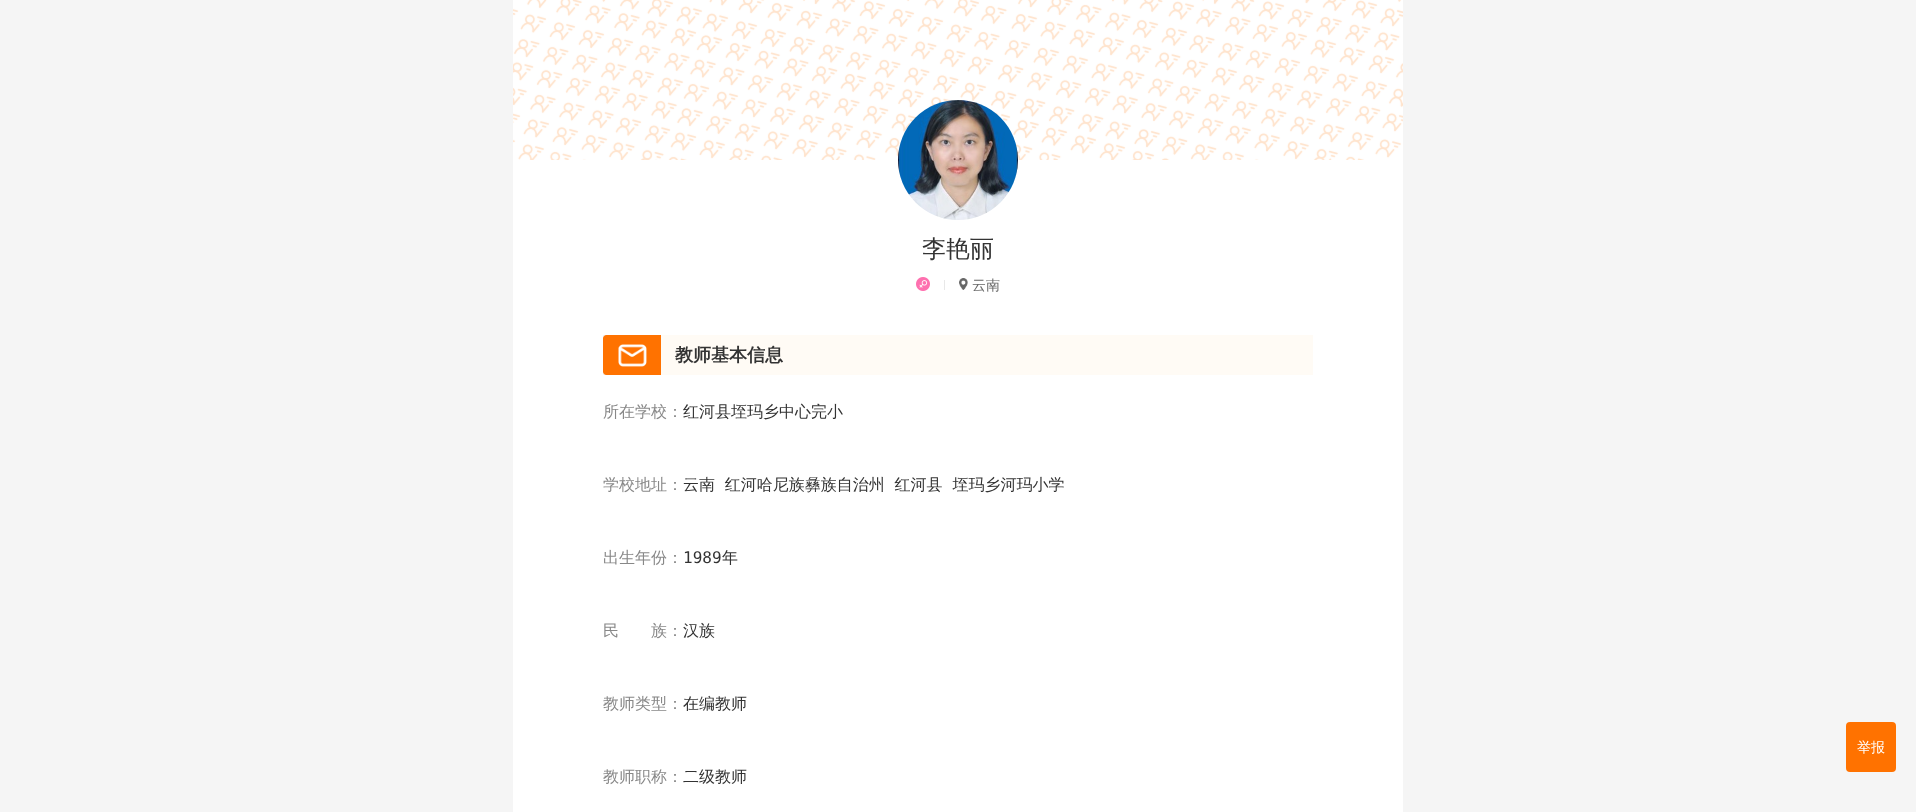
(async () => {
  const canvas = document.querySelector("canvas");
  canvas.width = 1916;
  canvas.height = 812;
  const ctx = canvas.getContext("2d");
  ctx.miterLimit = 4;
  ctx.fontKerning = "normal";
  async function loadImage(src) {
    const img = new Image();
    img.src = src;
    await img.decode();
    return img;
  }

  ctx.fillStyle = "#f5f5f5";
  ctx.fillRect(0, 0, 1916, 812);
  ctx.fillStyle = "#ffffff";
  ctx.fillRect(513, 160, 890, 652);
  ctx.drawImage(await loadImage("img/1.png"), 513, 0, 890, 160);
  ctx.drawImage(await loadImage("img/2.png"), 898, 100, 120, 120);
  ctx.drawImage(await loadImage("img/3.png"), 916, 277, 14, 14);
  ctx.fillStyle = "#e8e8e8";
  ctx.fillRect(944, 280, 1, 10);
  ctx.drawImage(await loadImage("img/4.png"), 959, 278, 9, 12);
  ctx.fillStyle = "#fffbf5";
  ctx.fillRect(661, 335, 652, 40);
  ctx.drawImage(await loadImage("img/5.png"), 603, 335, 58, 40);
  ctx.fillStyle = "#ff7200";
  ctx.beginPath();
  ctx.roundRect(1846, 722, 50, 50, 4);
  ctx.fill();
  ctx.font = "500 24px WenQuanYi Zen Hei";
  ctx.fillStyle = "#333333";
  ctx.fillText("李艳丽", 922, 257);
  ctx.font = "500 14px WenQuanYi Zen Hei";
  ctx.fillStyle = "#666666";
  ctx.fillText("云南", 972, 290);
  ctx.font = "bold 18px WenQuanYi Zen Hei";
  ctx.fillStyle = "#333333";
  ctx.fillText("教师基本信息", 675, 361);
  ctx.font = "500 16px WenQuanYi Zen Hei";
  ctx.fillStyle = "#888888";
  ctx.fillText("所在学校：", 603, 417);
  ctx.fillStyle = "#333333";
  ctx.fillText("红河县垤玛乡中心完小", 683, 417);
  ctx.fillStyle = "#888888";
  ctx.fillText("学校地址：", 603, 490);
  ctx.wordSpacing = "5px";
  ctx.fillStyle = "#333333";
  ctx.fillText("云南 红河哈尼族彝族自治州 红河县 垤玛乡河玛小学", 683, 490);
  ctx.wordSpacing = "0px";
  ctx.fillStyle = "#888888";
  ctx.fillText("出生年份：", 603, 563);
  ctx.font = "16px DejaVu Sans Mono";
  ctx.fillStyle = "#333333";
  ctx.fillText("1989", 683, 563);
  ctx.font = "500 16px WenQuanYi Zen Hei";
  ctx.fillText("年", 722, 563);
  ctx.fillStyle = "#888888";
  ctx.fillText("民　　族：", 603, 636);
  ctx.fillStyle = "#333333";
  ctx.fillText("汉族", 683, 636);
  ctx.fillStyle = "#888888";
  ctx.fillText("教师类型：", 603, 709);
  ctx.fillStyle = "#333333";
  ctx.fillText("在编教师", 683, 709);
  ctx.fillStyle = "#888888";
  ctx.fillText("教师职称：", 603, 782);
  ctx.fillStyle = "#333333";
  ctx.fillText("二级教师", 683, 782);
  ctx.font = "500 14px WenQuanYi Zen Hei";
  ctx.fillStyle = "#ffffff";
  ctx.fillText("举报", 1857, 752);
})();
